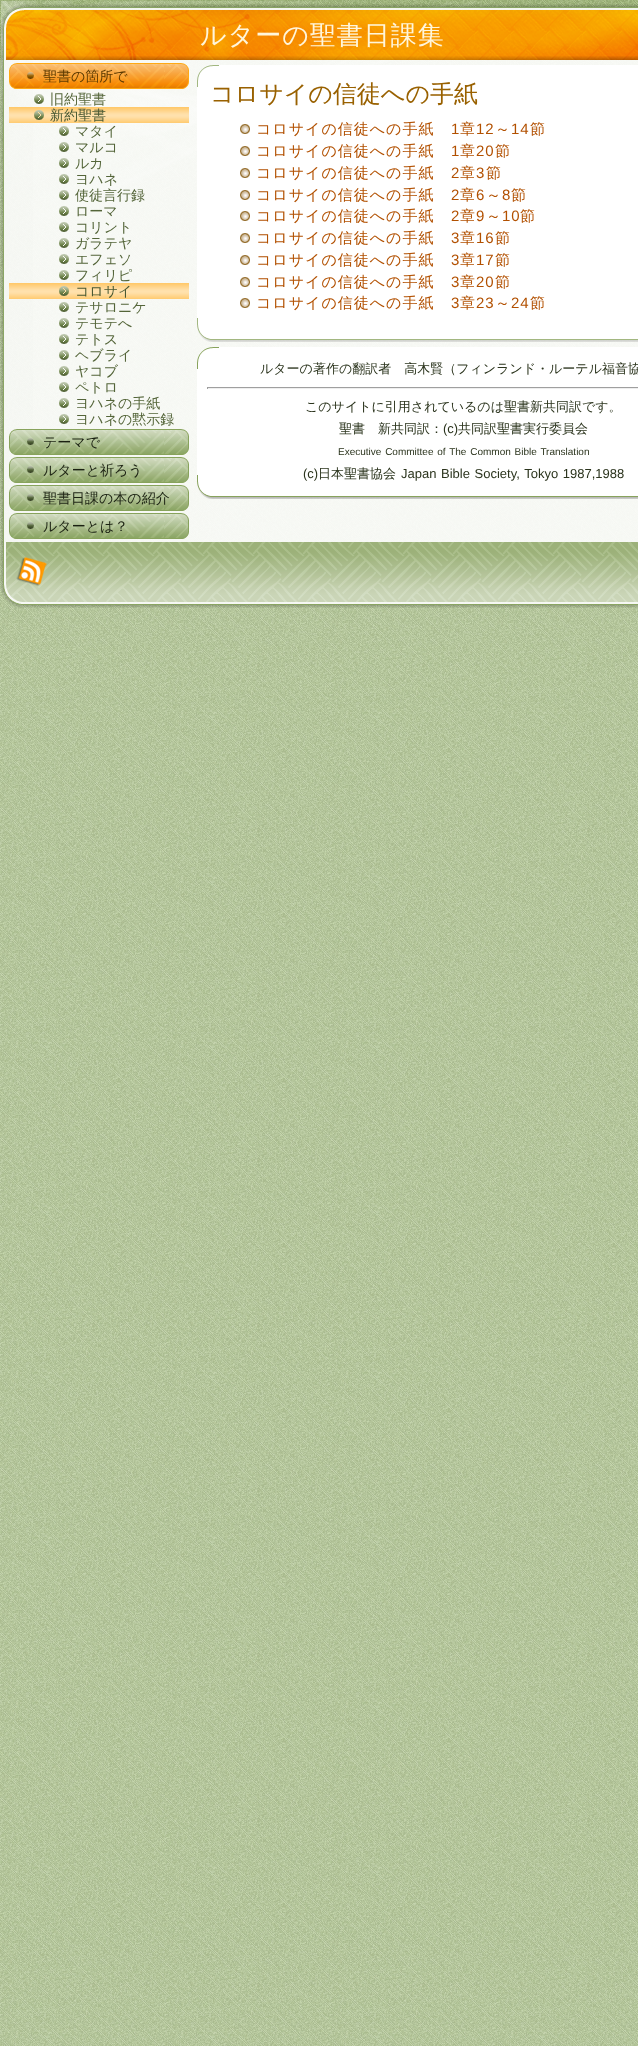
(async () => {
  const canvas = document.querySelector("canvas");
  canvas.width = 638;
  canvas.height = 2046;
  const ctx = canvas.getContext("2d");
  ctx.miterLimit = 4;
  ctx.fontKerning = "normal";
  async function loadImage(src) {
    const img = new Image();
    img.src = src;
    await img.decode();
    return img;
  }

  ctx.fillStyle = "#ffffff";
  ctx.fillRect(0, 0, 638, 2046);
  ctx.drawImage(await loadImage("img/1.png"), 0, 61, 638, 1985);
  ctx.drawImage(await loadImage("img/2.png"), 0, 0, 638, 61);
  ctx.drawImage(await loadImage("img/3.png"), 1, 1, 503, 238);
  ctx.drawImage(await loadImage("img/4.png"), 0, 4, 33, 33);
  ctx.drawImage(await loadImage("img/5.png"), 33, 4, 605, 6);
  ctx.drawImage(await loadImage("img/6.png"), 0, 37, 33, 538);
  ctx.drawImage(await loadImage("img/7.png"), 6, 10, 632, 50);
  ctx.fillStyle = "rgba(254, 254, 254, 0.9)";
  ctx.fillRect(33, 60, 605, 482);
  ctx.drawImage(await loadImage("img/8.png"), 9, 63, 155, 26);
  ctx.drawImage(await loadImage("img/9.png"), 164, 63, 25, 26);
  ctx.drawImage(await loadImage("img/10.png"), 34, 94, 10, 10);
  ctx.drawImage(await loadImage("img/11.png"), 9, 107, 180, 16);
  ctx.drawImage(await loadImage("img/12.png"), 59, 126, 10, 10);
  ctx.drawImage(await loadImage("img/13.png"), 59, 142, 10, 10);
  ctx.drawImage(await loadImage("img/14.png"), 59, 158, 10, 10);
  ctx.drawImage(await loadImage("img/15.png"), 59, 174, 10, 10);
  ctx.drawImage(await loadImage("img/16.png"), 59, 190, 10, 10);
  ctx.drawImage(await loadImage("img/17.png"), 59, 206, 10, 10);
  ctx.drawImage(await loadImage("img/18.png"), 59, 222, 10, 10);
  ctx.drawImage(await loadImage("img/19.png"), 59, 238, 10, 10);
  ctx.drawImage(await loadImage("img/20.png"), 59, 254, 10, 10);
  ctx.drawImage(await loadImage("img/21.png"), 59, 270, 10, 10);
  ctx.drawImage(await loadImage("img/22.png"), 9, 283, 180, 16);
  ctx.drawImage(await loadImage("img/23.png"), 59, 302, 10, 10);
  ctx.drawImage(await loadImage("img/24.png"), 59, 318, 10, 10);
  ctx.drawImage(await loadImage("img/25.png"), 59, 334, 10, 10);
  ctx.drawImage(await loadImage("img/26.png"), 59, 350, 10, 10);
  ctx.drawImage(await loadImage("img/27.png"), 59, 366, 10, 10);
  ctx.drawImage(await loadImage("img/28.png"), 59, 382, 10, 10);
  ctx.drawImage(await loadImage("img/29.png"), 59, 398, 10, 10);
  ctx.drawImage(await loadImage("img/30.png"), 59, 414, 10, 10);
  ctx.drawImage(await loadImage("img/31.png"), 9, 429, 155, 26);
  ctx.drawImage(await loadImage("img/32.png"), 164, 429, 25, 26);
  ctx.drawImage(await loadImage("img/33.png"), 9, 457, 155, 26);
  ctx.drawImage(await loadImage("img/34.png"), 164, 457, 25, 26);
  ctx.drawImage(await loadImage("img/35.png"), 9, 485, 155, 26);
  ctx.drawImage(await loadImage("img/36.png"), 164, 485, 25, 26);
  ctx.drawImage(await loadImage("img/37.png"), 9, 513, 155, 26);
  ctx.drawImage(await loadImage("img/38.png"), 164, 513, 25, 26);
  ctx.drawImage(await loadImage("img/39.png"), 197, 65, 22, 22);
  ctx.fillStyle = "#ffffff";
  ctx.fillRect(219, 65, 419, 22);
  ctx.fillRect(197, 87, 441, 231);
  ctx.drawImage(await loadImage("img/40.png"), 240, 124, 10, 10);
  ctx.drawImage(await loadImage("img/40.png"), 240, 146, 10, 10);
  ctx.drawImage(await loadImage("img/40.png"), 240, 168, 10, 10);
  ctx.drawImage(await loadImage("img/40.png"), 240, 190, 10, 10);
  ctx.drawImage(await loadImage("img/40.png"), 240, 211, 10, 10);
  ctx.drawImage(await loadImage("img/40.png"), 240, 233, 10, 10);
  ctx.drawImage(await loadImage("img/40.png"), 240, 255, 10, 10);
  ctx.drawImage(await loadImage("img/40.png"), 240, 277, 10, 10);
  ctx.drawImage(await loadImage("img/40.png"), 240, 298, 10, 10);
  ctx.drawImage(await loadImage("img/41.png"), 197, 318, 22, 24);
  ctx.drawImage(await loadImage("img/42.png"), 219, 318, 419, 24);
  ctx.drawImage(await loadImage("img/43.png"), 197, 347, 22, 22);
  for (const [x, y, w, h, color] of [
    [219, 347, 419, 22, "#ffffff"],
    [197, 369, 441, 106, "#ffffff"],
    [207, 387, 431, 1, "#9f9f9f"],
    [207, 388, 431, 1, "#eeeeee"],
    [207, 387, 1, 2, "#9f9f9f"],
  ]) {
    ctx.fillStyle = color;
    ctx.fillRect(x, y, w, h);
  }
  ctx.drawImage(await loadImage("img/44.png"), 197, 475, 22, 24);
  ctx.drawImage(await loadImage("img/45.png"), 219, 475, 419, 24);
  ctx.drawImage(await loadImage("img/46.png"), 6, 542, 632, 10);
  ctx.drawImage(await loadImage("img/50.png"), 0, 575, 33, 33);
  ctx.drawImage(await loadImage("img/47.png"), 6, 552, 18, 50);
  ctx.drawImage(await loadImage("img/48.png"), 24, 552, 614, 50);
  ctx.drawImage(await loadImage("img/49.png"), 16, 557, 31, 29);
  ctx.drawImage(await loadImage("img/51.png"), 33, 602, 605, 6);
  ctx.letterSpacing = "1px";
  ctx.font = "500 26px WenQuanYi Zen Hei";
  ctx.fillStyle = "#fff6db";
  ctx.fillText("ルターの聖書日課集", 200, 44);
  ctx.letterSpacing = "0px";
  ctx.font = "500 14px WenQuanYi Zen Hei";
  ctx.fillStyle = "#5c3a00";
  ctx.fillText("聖書の箇所で", 43, 81);
  ctx.fillStyle = "#546539";
  ctx.fillText("旧約聖書", 50, 104);
  ctx.fillStyle = "#495832";
  ctx.fillText("新約聖書", 50, 120);
  ctx.fillStyle = "#546539";
  for (const [text, x, y] of [
    ["マタイ", 75, 136],
    ["マルコ", 75, 152],
    ["ルカ", 75, 168],
    ["ヨハネ", 75, 184],
    ["使徒言行録", 75, 200],
    ["ローマ", 75, 216],
    ["コリント", 75, 232],
    ["ガラテヤ", 75, 248],
    ["エフェソ", 75, 264],
    ["フィリピ", 75, 280],
  ]) {
    ctx.fillText(text, x, y);
  }
  ctx.fillStyle = "#495832";
  ctx.fillText("コロサイ", 75, 296);
  ctx.fillStyle = "#546539";
  for (const [text, x, y] of [
    ["テサロニケ", 75, 312],
    ["テモテへ", 75, 328],
    ["テトス", 75, 344],
    ["ヘブライ", 75, 360],
    ["ヤコブ", 75, 376],
    ["ペトロ", 75, 392],
    ["ヨハネの手紙", 75, 408],
    ["ヨハネの黙示録", 75, 424],
  ]) {
    ctx.fillText(text, x, y);
  }
  ctx.fillStyle = "#1b2112";
  for (const [text, x, y] of [
    ["テーマで", 43, 447],
    ["ルターと祈ろう", 43, 475],
    ["聖書日課の本の紹介", 43, 503],
    ["ルターとは？", 43, 531],
  ]) {
    ctx.fillText(text, x, y);
  }
  ctx.font = "500 24px WenQuanYi Zen Hei";
  ctx.fillStyle = "#996100";
  ctx.fillText("コロサイの信徒への手紙", 210, 102);
  ctx.letterSpacing = "1px";
  ctx.font = "500 15px WenQuanYi Zen Hei";
  ctx.fillStyle = "#b25000";
  ctx.fillText("コロサイの信徒への手紙", 256, 134);
  ctx.font = "15px Liberation Sans";
  ctx.fillText("1", 451, 134);
  ctx.font = "500 15px WenQuanYi Zen Hei";
  ctx.fillText("章", 460, 134);
  ctx.font = "15px Liberation Sans";
  ctx.fillText("12", 476, 134);
  ctx.font = "500 15px WenQuanYi Zen Hei";
  ctx.fillText("～", 495, 134);
  ctx.font = "15px Liberation Sans";
  ctx.fillText("14", 511, 134);
  ctx.font = "500 15px WenQuanYi Zen Hei";
  ctx.fillText("節", 530, 134);
  ctx.fillText("コロサイの信徒への手紙", 256, 156);
  ctx.font = "15px Liberation Sans";
  ctx.fillText("1", 451, 156);
  ctx.font = "500 15px WenQuanYi Zen Hei";
  ctx.fillText("章", 460, 156);
  ctx.font = "15px Liberation Sans";
  ctx.fillText("20", 476, 156);
  ctx.font = "500 15px WenQuanYi Zen Hei";
  ctx.fillText("節", 495, 156);
  ctx.fillText("コロサイの信徒への手紙", 256, 178);
  ctx.font = "15px Liberation Sans";
  ctx.fillText("2", 451, 178);
  ctx.font = "500 15px WenQuanYi Zen Hei";
  ctx.fillText("章", 460, 178);
  ctx.font = "15px Liberation Sans";
  ctx.fillText("3", 476, 178);
  ctx.font = "500 15px WenQuanYi Zen Hei";
  ctx.fillText("節", 486, 178);
  ctx.fillText("コロサイの信徒への手紙", 256, 200);
  ctx.font = "15px Liberation Sans";
  ctx.fillText("2", 451, 200);
  ctx.font = "500 15px WenQuanYi Zen Hei";
  ctx.fillText("章", 460, 200);
  ctx.font = "15px Liberation Sans";
  ctx.fillText("6", 476, 200);
  ctx.font = "500 15px WenQuanYi Zen Hei";
  ctx.fillText("～", 486, 200);
  ctx.font = "15px Liberation Sans";
  ctx.fillText("8", 502, 200);
  ctx.font = "500 15px WenQuanYi Zen Hei";
  ctx.fillText("節", 511, 200);
  ctx.fillText("コロサイの信徒への手紙", 256, 221);
  ctx.font = "15px Liberation Sans";
  ctx.fillText("2", 451, 221);
  ctx.font = "500 15px WenQuanYi Zen Hei";
  ctx.fillText("章", 460, 221);
  ctx.font = "15px Liberation Sans";
  ctx.fillText("9", 476, 221);
  ctx.font = "500 15px WenQuanYi Zen Hei";
  ctx.fillText("～", 486, 221);
  ctx.font = "15px Liberation Sans";
  ctx.fillText("10", 502, 221);
  ctx.font = "500 15px WenQuanYi Zen Hei";
  ctx.fillText("節", 520, 221);
  ctx.fillText("コロサイの信徒への手紙", 256, 243);
  ctx.font = "15px Liberation Sans";
  ctx.fillText("3", 451, 243);
  ctx.font = "500 15px WenQuanYi Zen Hei";
  ctx.fillText("章", 460, 243);
  ctx.font = "15px Liberation Sans";
  ctx.fillText("16", 476, 243);
  ctx.font = "500 15px WenQuanYi Zen Hei";
  ctx.fillText("節", 495, 243);
  ctx.fillText("コロサイの信徒への手紙", 256, 265);
  ctx.font = "15px Liberation Sans";
  ctx.fillText("3", 451, 265);
  ctx.font = "500 15px WenQuanYi Zen Hei";
  ctx.fillText("章", 460, 265);
  ctx.font = "15px Liberation Sans";
  ctx.fillText("17", 476, 265);
  ctx.font = "500 15px WenQuanYi Zen Hei";
  ctx.fillText("節", 495, 265);
  ctx.fillText("コロサイの信徒への手紙", 256, 287);
  ctx.font = "15px Liberation Sans";
  ctx.fillText("3", 451, 287);
  ctx.font = "500 15px WenQuanYi Zen Hei";
  ctx.fillText("章", 460, 287);
  ctx.font = "15px Liberation Sans";
  ctx.fillText("20", 476, 287);
  ctx.font = "500 15px WenQuanYi Zen Hei";
  ctx.fillText("節", 495, 287);
  ctx.fillText("コロサイの信徒への手紙", 256, 308);
  ctx.font = "15px Liberation Sans";
  ctx.fillText("3", 451, 308);
  ctx.font = "500 15px WenQuanYi Zen Hei";
  ctx.fillText("章", 460, 308);
  ctx.font = "15px Liberation Sans";
  ctx.fillText("23", 476, 308);
  ctx.font = "500 15px WenQuanYi Zen Hei";
  ctx.fillText("～", 495, 308);
  ctx.font = "15px Liberation Sans";
  ctx.fillText("24", 511, 308);
  ctx.font = "500 15px WenQuanYi Zen Hei";
  ctx.fillText("節", 530, 308);
  ctx.letterSpacing = "0px";
  ctx.font = "500 13px WenQuanYi Zen Hei";
  ctx.fillStyle = "#2b341d";
  for (const [text, x, y] of [
    ["ルターの著作の翻訳者　高木賢（フィンランド・ルーテル福音協", 260, 373],
    ["このサイトに引用されているのは聖書新共同訳です。", 305, 411],
    ["聖書　新共同訳：", 339, 433],
  ]) {
    ctx.fillText(text, x, y);
  }
  ctx.font = "13px Liberation Sans";
  ctx.fillText("(c)", 443, 433);
  ctx.font = "500 13px WenQuanYi Zen Hei";
  ctx.fillText("共同訳聖書実行委員会", 458, 433);
  ctx.wordSpacing = "1px";
  ctx.font = "10px Liberation Sans";
  ctx.fillText("Executive Committee of The Common Bible Translation", 338, 455);
  ctx.wordSpacing = "0px";
  ctx.font = "13px Liberation Sans";
  ctx.fillText("(c)", 303, 478);
  ctx.font = "500 13px WenQuanYi Zen Hei";
  ctx.fillText("日本聖書協会", 318, 478);
  ctx.wordSpacing = "1px";
  ctx.font = "13px Liberation Sans";
  ctx.fillText("Japan Bible Society, Tokyo 1987,1988", 401, 478);
})();
